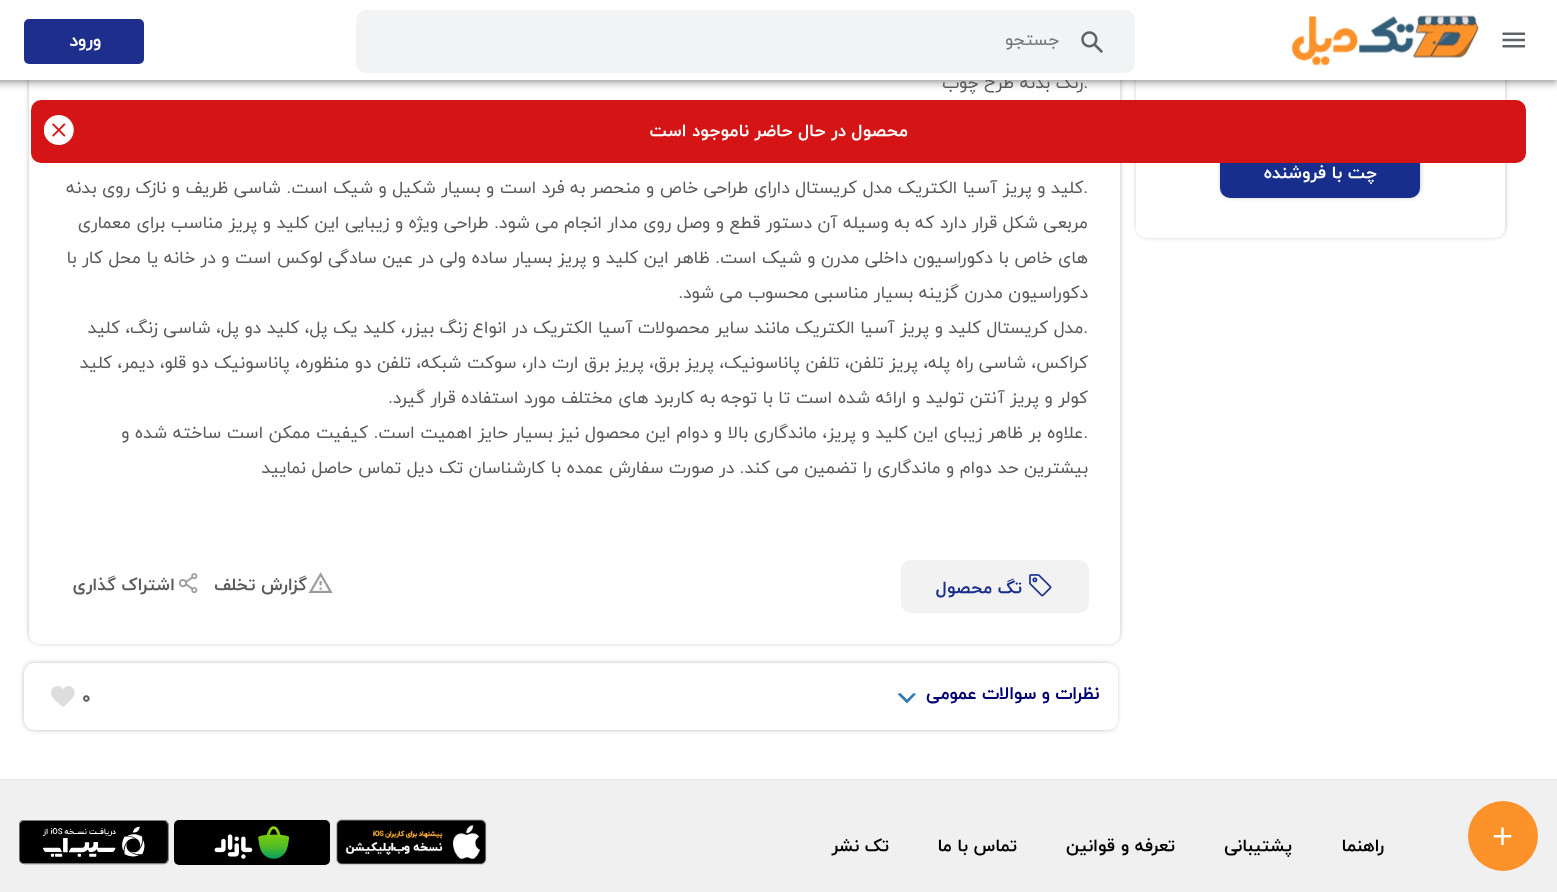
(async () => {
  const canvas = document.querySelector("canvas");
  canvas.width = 1557;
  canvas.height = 892;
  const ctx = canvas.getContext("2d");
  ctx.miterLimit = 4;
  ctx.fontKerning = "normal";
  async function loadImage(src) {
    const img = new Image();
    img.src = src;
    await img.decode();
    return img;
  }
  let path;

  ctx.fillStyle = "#ffffff";
  ctx.fillRect(0, 0, 1557, 892);
  ctx.fillStyle = "rgba(0, 0, 0, 0.5)";
  ctx.filter = "blur(3px)";
  ctx.beginPath();
  ctx.roundRect(31, -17, 1087, 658, 8);
  ctx.fill();
  ctx.filter = "none";
  ctx.fillStyle = "#ffffff";
  ctx.beginPath();
  ctx.roundRect(29, -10, 1091, 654, 10);
  ctx.fill();
  ctx.fillStyle = "rgba(0, 0, 0, 0.5)";
  ctx.filter = "blur(3px)";
  ctx.beginPath();
  ctx.roundRect(1139, -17, 364, 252, 8);
  ctx.fill();
  ctx.filter = "none";
  ctx.fillStyle = "#ffffff";
  ctx.beginPath();
  ctx.roundRect(1136, -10, 369, 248, 10);
  ctx.fill();
  ctx.fillStyle = "rgba(0, 0, 0, 0.2)";
  ctx.filter = "blur(2.5px)";
  ctx.beginPath();
  ctx.rect(-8, 4, 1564, 77);
  ctx.fill();
  ctx.filter = "none";
  ctx.fillStyle = "rgba(0, 0, 0, 0.12)";
  ctx.filter = "blur(6px)";
  ctx.beginPath();
  ctx.rect(-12, 1, 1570, 80);
  ctx.fill();
  ctx.filter = "none";
  ctx.fillStyle = "rgba(0, 0, 0, 0.14)";
  ctx.filter = "blur(3px)";
  ctx.beginPath();
  ctx.rect(-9, 5, 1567, 80);
  ctx.fill();
  ctx.filter = "none";
  ctx.fillStyle = "#f0f0f0";
  ctx.fillRect(0, 780, 1557, 112);
  ctx.fillStyle = "#fc9229";
  ctx.beginPath();
  ctx.arc(1503, 836, 35, 0, Math.PI * 2);
  ctx.fill();
  ctx.drawImage(await loadImage("img/4.png"), 1493, 827, 19, 18);
  ctx.fillStyle = "#f2f2f2";
  ctx.beginPath();
  ctx.roundRect(901, 560, 188, 53, 10);
  ctx.fill();
  ctx.drawImage(await loadImage("img/5.png"), 1029, 574, 23, 23);
  ctx.drawImage(await loadImage("img/6.png"), 308, 572, 25, 21);
  ctx.drawImage(await loadImage("img/7.png"), 178, 573, 20, 21);
  ctx.fillStyle = "rgba(0, 0, 0, 0.5)";
  ctx.filter = "blur(3px)";
  ctx.beginPath();
  ctx.roundRect(1223, 150, 195, 45, 8);
  ctx.fill();
  ctx.filter = "none";
  ctx.fillStyle = "#172e8d";
  ctx.beginPath();
  ctx.roundRect(1220, 148, 200, 50, 10);
  ctx.fill();
  ctx.fillStyle = "#d51515";
  ctx.beginPath();
  ctx.roundRect(31, 100, 1495, 63, 10);
  ctx.fill();
  ctx.drawImage(await loadImage("img/8.png"), 44, 115, 30, 30);
  ctx.fillStyle = "rgba(0, 0, 0, 0.5)";
  ctx.filter = "blur(3px)";
  ctx.beginPath();
  ctx.roundRect(26, 665, 1089, 63, 8);
  ctx.fill();
  ctx.filter = "none";
  ctx.fillStyle = "#ffffff";
  ctx.beginPath();
  ctx.roundRect(24, 663, 1094, 67, 10);
  ctx.fill();
  ctx.fillStyle = "#337ab7";
  path = new Path2D("M900.5 693L907 699.5L913.5 693L916 694L907 703.5L897.5 694Z");
  ctx.fill(path);
  ctx.drawImage(await loadImage("img/9.png"), 51, 686, 24, 21);
  ctx.fillStyle = "#e7e7e7";
  path = new Path2D("M0 779V780H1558V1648V779Z");
  ctx.fill(path);
  ctx.drawImage(await loadImage("img/10.png"), 336, 819, 151, 46);
  ctx.fillStyle = "#000000";
  ctx.beginPath();
  ctx.roundRect(174, 820, 156, 45, 5);
  ctx.fill();
  ctx.drawImage(await loadImage("img/11.png"), 19, 820, 150, 45);
  ctx.drawImage(await loadImage("img/12.png"), 214, 826, 76, 33);
  ctx.direction = "rtl";
  ctx.font = "17.5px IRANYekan";
  ctx.fillStyle = "#5a5a5a";
  ctx.fillText(".رنگ بدنه طرح چوب", 1088, 88);
  ctx.fillStyle = "#ffffff";
  ctx.fillRect(0, 0, 1557, 80);
  ctx.fillStyle = "#f1f3f4";
  ctx.beginPath();
  ctx.roundRect(356, 10, 779, 63, 10);
  ctx.fill();
  ctx.drawImage(await loadImage("img/3.png"), 1081, 31, 22, 22);
  ctx.fillStyle = "#757575";
  ctx.fillText("جستجو", 1059, 45);
  ctx.fillStyle = "#1d2e8d";
  ctx.beginPath();
  ctx.roundRect(24, 19, 120, 45, 5);
  ctx.fill();
  ctx.letterSpacing = "0.5px";
  ctx.font = "bold 17.5px 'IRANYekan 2'";
  ctx.fillStyle = "#ffffff";
  ctx.fillText("ورود", 101, 46);
  ctx.drawImage(await loadImage("img/1.png"), 1502, 32, 23, 16);
  ctx.drawImage(await loadImage("img/2.png"), 1291, 15, 188, 51);
  ctx.letterSpacing = "0px";
  ctx.font = "17.5px IRANYekan";
  ctx.fillStyle = "#5a5a5a";
  for (const [text, x, y] of [
    [".کلید و پریز آسیا الکتریک مدل کریستال دارای طراحی خاص و منحصر به فرد است و بسیار شکیل و شیک است. شاسی ظریف و نازک روی بدنه", 1088, 193],
    ["مربعی شکل قرار دارد که به وسیله آن دستور قطع و وصل روی مدار انجام می شود. طراحی ویژه و زیبایی این کلید و پریز مناسب برای معماری", 1088, 228],
    ["های خاص با دکوراسیون داخلی مدرن و شیک است. ظاهر این کلید و پریز بسیار ساده ولی در عین سادگی لوکس است و در خانه یا محل کار با", 1088, 263],
    ["دکوراسیون مدرن گزینه بسیار مناسبی محسوب می شود.", 1088, 298],
    [".مدل کریستال کلید و پریز آسیا الکتریک مانند سایر محصولات آسیا الکتریک در انواع زنگ بیزر، کلید یک پل، کلید دو پل، شاسی زنگ، کلید", 1088, 333],
    ["کراکس، شاسی راه پله، پریز تلفن، تلفن پاناسونیک، پریز برق، پریز برق ارت دار، سوکت شبکه، تلفن دو منظوره، پاناسونیک دو قلو، دیمر، کلید", 1088, 368],
    ["کولر و پریز آنتن تولید و ارائه شده است تا با توجه به کاربرد های مختلف مورد استفاده قرار گیرد.", 1088, 403],
    [".علاوه بر ظاهر زیبای این کلید و پریز، ماندگاری بالا و دوام این محصول نیز بسیار حایز اهمیت است. کیفیت ممکن است ساخته شده و", 1088, 438],
    ["بیشترین حد دوام و ماندگاری را تضمین می کند. در صورت سفارش عمده با کارشناسان تک دیل تماس حاصل نمایید", 1088, 473],
  ]) {
    ctx.fillText(text, x, y);
  }
  ctx.font = "bold 17.5px IRANYekan";
  ctx.fillStyle = "#172e8d";
  ctx.fillText("تگ محصول", 1022, 593);
  ctx.fillStyle = "#5a5a5a";
  ctx.fillText("گزارش تخلف", 307, 590);
  ctx.fillText("اشتراک گذاری", 175, 590);
  ctx.fillStyle = "#ffffff";
  ctx.fillText("محصول در حال حاضر ناموجود است", 908, 136);
  ctx.fillText("چت با فروشنده", 1377, 178);
  ctx.font = "bold 17.5px 'IRANYekan 2'";
  ctx.fillStyle = "#000076";
  ctx.fillText("نظرات و سوالات عمومی", 1099, 699);
  ctx.direction = "ltr";
  ctx.font = "bold 17.5px IRANYekan";
  ctx.fillStyle = "#5a5a5a";
  ctx.fillText("۰", 82, 703);
  ctx.direction = "rtl";
  ctx.fillStyle = "#000000";
  for (const [text, x, y] of [
    ["راهنما", 1384, 851],
    ["پشتیبانی", 1292, 851],
    ["تعرفه و قوانین", 1175, 851],
    ["تماس با ما", 1017, 851],
    ["تک نشر", 889, 851],
  ]) {
    ctx.fillText(text, x, y);
  }
})();
